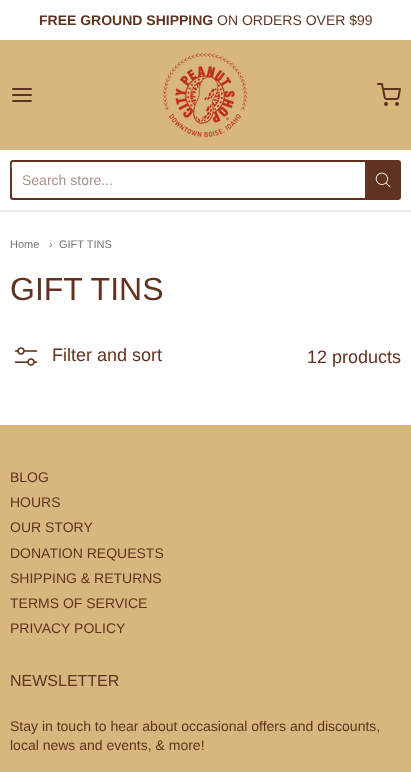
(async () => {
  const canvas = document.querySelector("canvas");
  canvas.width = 411;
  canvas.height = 772;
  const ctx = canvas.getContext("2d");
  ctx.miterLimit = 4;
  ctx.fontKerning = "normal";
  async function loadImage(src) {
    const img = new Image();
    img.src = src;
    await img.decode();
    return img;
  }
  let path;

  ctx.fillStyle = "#ffffff";
  ctx.fillRect(0, 0, 411, 772);
  ctx.fillStyle = "#ebebeb";
  ctx.fillRect(0, 210, 411, 2);
  ctx.fillStyle = "#d7b77e";
  ctx.fillRect(0, 40, 411, 110);
  path = new Path2D("M13 95H31M13 89H31M13 101H31");
  ctx.strokeStyle = "#603320";
  ctx.lineWidth = 2;
  ctx.lineCap = "round";
  ctx.lineJoin = "round";
  ctx.stroke(path);
  ctx.drawImage(await loadImage("img/1.png"), 162, 52, 86, 86);
  ctx.drawImage(await loadImage("img/2.png"), 377, 83, 24, 23);
  ctx.fillStyle = "#603320";
  path = new Path2D("M13 160H365V200H13C11 200 10 199 10 197V163C10 161 11 160 13 160ZM13 162H365V198H13L12 197V169C12 167 11 162 13 162Z");
  ctx.fill(path, "evenodd");
  ctx.beginPath();
  ctx.roundRect(366, 161, 34, 38, [0, 2, 2, 0]);
  ctx.fill();
  ctx.lineJoin = "miter";
  ctx.stroke();
  ctx.drawImage(await loadImage("img/3.png"), 375, 172, 16, 16);
  ctx.drawImage(await loadImage("img/4.png"), 14, 347, 24, 19);
  ctx.fillStyle = "#d7b77e";
  ctx.fillRect(0, 425, 411, 347);
  ctx.font = "bold 14px Liberation Sans";
  ctx.fillStyle = "#603320";
  ctx.fillText("FREE GROUND SHIPPING", 39, 25);
  ctx.font = "14px Liberation Sans";
  ctx.fillText("ON ORDERS OVER $99", 217, 25);
  ctx.fillStyle = "#a99187";
  ctx.fillText("Search store...", 22, 185);
  ctx.font = "11px Liberation Sans";
  ctx.fillStyle = "#747474";
  for (const [text, x, y] of [
    ["Home", 10, 248],
    ["›", 49, 248],
    ["GIFT TINS", 59, 248],
  ]) {
    ctx.fillText(text, x, y);
  }
  ctx.font = "32px Liberation Sans";
  ctx.fillStyle = "#603320";
  ctx.fillText("GIFT TINS", 10, 300);
  ctx.font = "18px Liberation Sans";
  ctx.fillText("Filter and sort", 52, 361);
  ctx.fillText("12 products", 307, 363);
  ctx.font = "14px Liberation Sans";
  for (const [text, x, y] of [
    ["BLOG", 10, 482],
    ["HOURS", 10, 507],
    ["OUR STORY", 10, 532],
    ["DONATION REQUESTS", 10, 558],
    ["SHIPPING & RETURNS", 10, 583],
    ["TERMS OF SERVICE", 10, 608],
    ["PRIVACY POLICY", 10, 633],
  ]) {
    ctx.fillText(text, x, y);
  }
  ctx.font = "16px Liberation Sans";
  ctx.fillText("NEWSLETTER", 10, 686);
  ctx.font = "14px Liberation Sans";
  ctx.fillText("Stay in touch to hear about occasional offers and discounts,", 10, 731);
  ctx.fillText("local news and events, & more!", 10, 750);
})();
